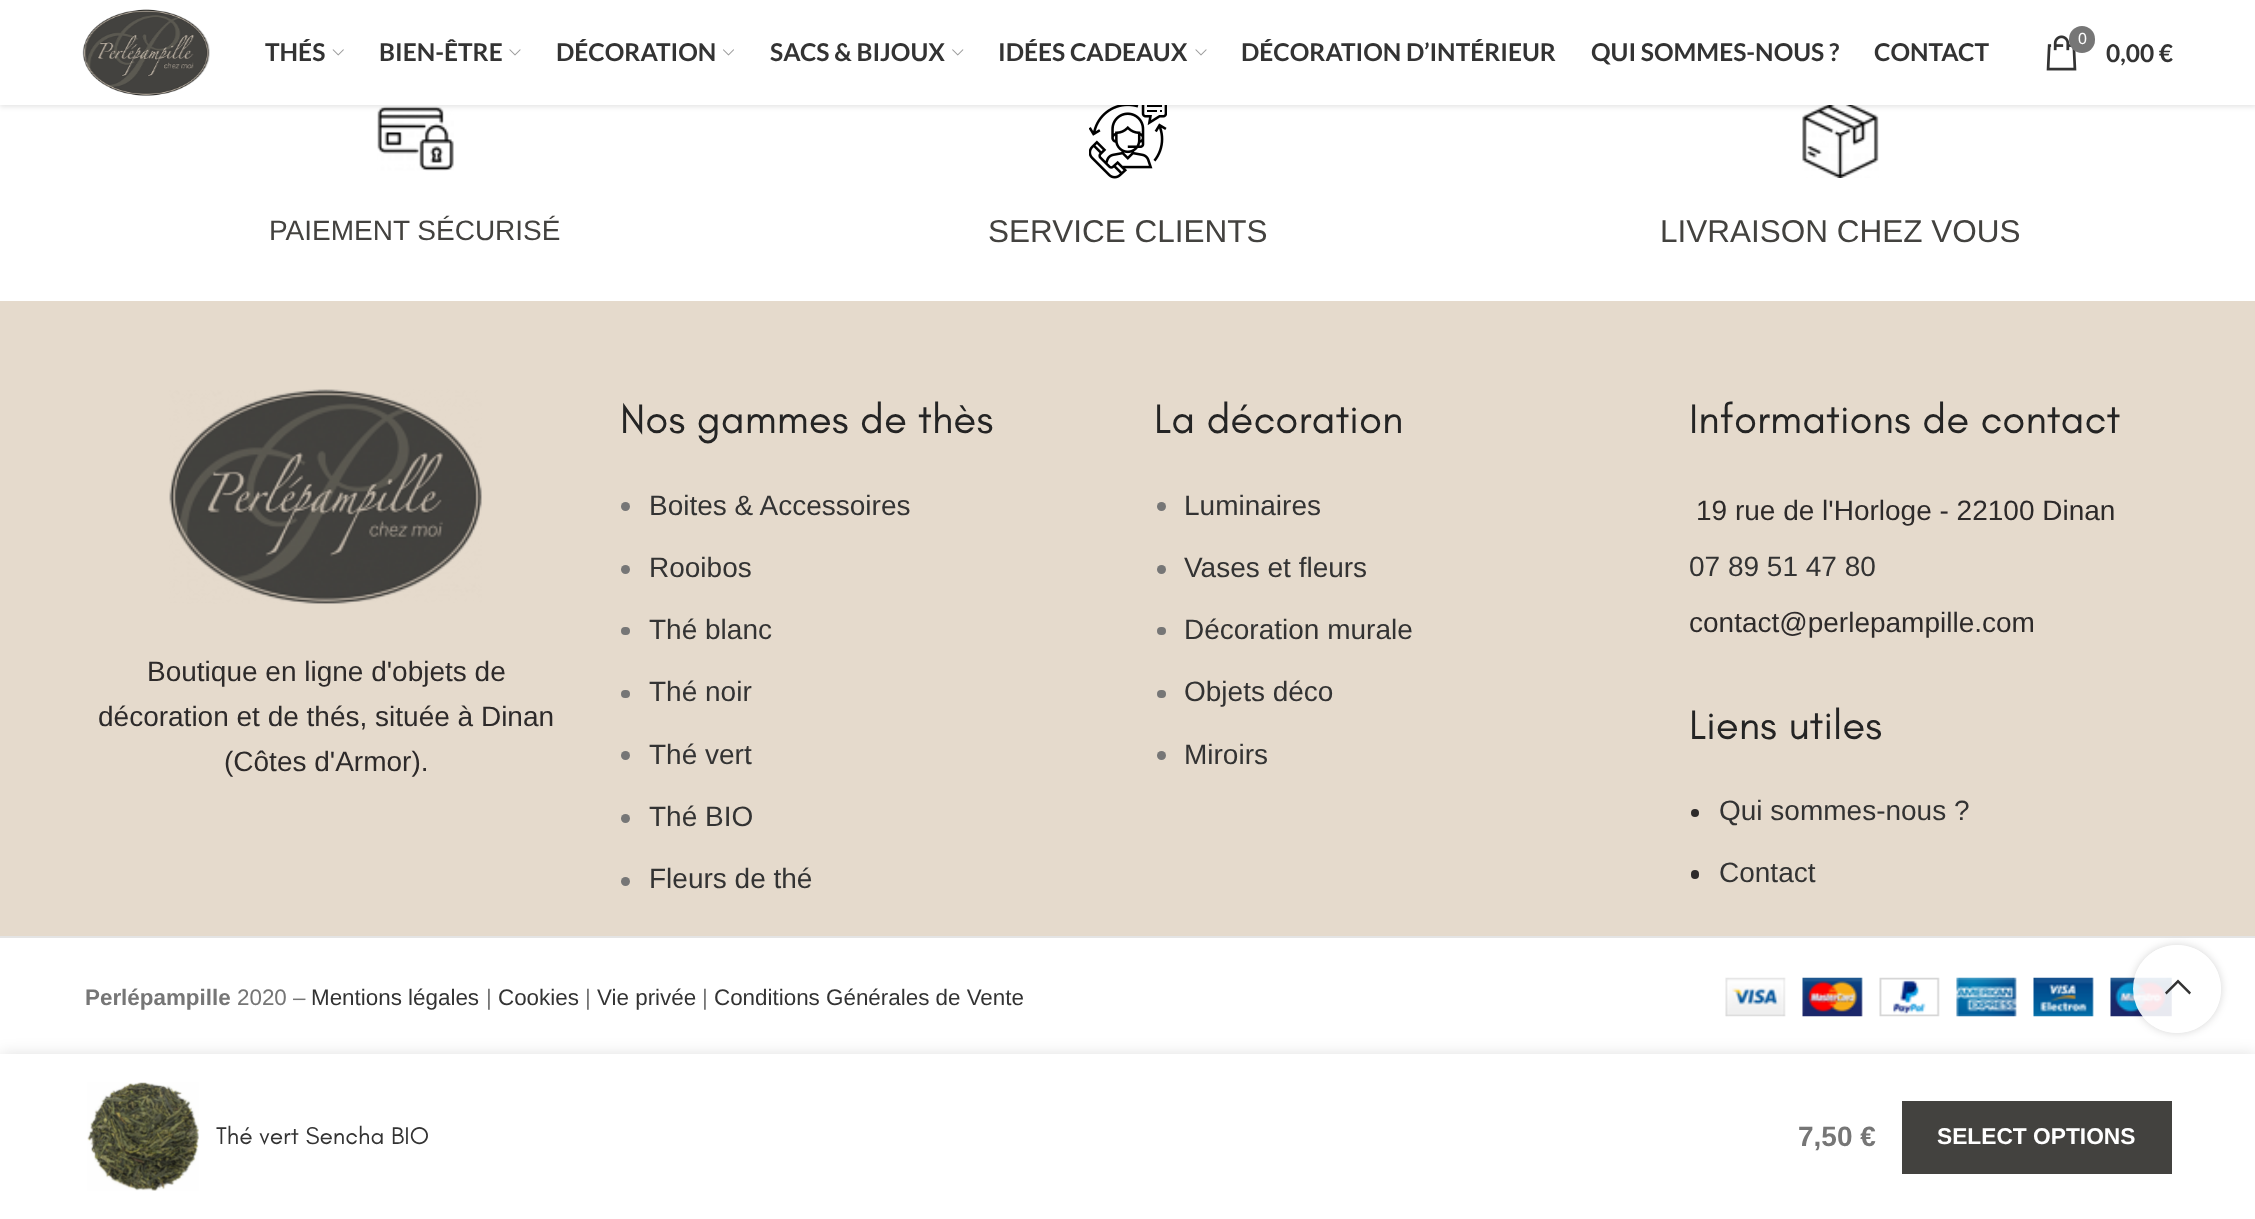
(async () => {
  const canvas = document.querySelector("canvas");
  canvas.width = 2255;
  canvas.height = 1219;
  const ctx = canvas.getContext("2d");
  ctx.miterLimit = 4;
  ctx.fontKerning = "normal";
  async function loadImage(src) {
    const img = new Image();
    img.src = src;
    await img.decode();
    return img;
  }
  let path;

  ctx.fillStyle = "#ffffff";
  ctx.fillRect(0, 0, 2255, 1219);
  ctx.drawImage(await loadImage("img/7.png"), 377, 106, 77, 65);
  ctx.drawImage(await loadImage("img/8.png"), 1089, 105, 78, 74);
  ctx.drawImage(await loadImage("img/9.png"), 1802, 105, 77, 73);
  ctx.fillStyle = "rgba(0, 0, 0, 0.1)";
  ctx.filter = "blur(2.5px)";
  ctx.beginPath();
  ctx.rect(0, 2, 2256, 105);
  ctx.fill();
  ctx.filter = "none";
  ctx.fillStyle = "#ffffff";
  ctx.fillRect(0, 0, 2255, 105);
  ctx.drawImage(await loadImage("img/1.png"), 82, 9, 128, 87);
  ctx.drawImage(await loadImage("img/2.png"), 332, 49, 12, 7);
  ctx.drawImage(await loadImage("img/3.png"), 509, 49, 12, 7);
  ctx.drawImage(await loadImage("img/4.png"), 723, 49, 11, 7);
  ctx.drawImage(await loadImage("img/5.png"), 952, 49, 12, 7);
  ctx.drawImage(await loadImage("img/3.png"), 1195, 49, 12, 7);
  ctx.drawImage(await loadImage("img/6.png"), 2046, 35, 31, 36);
  ctx.fillStyle = "#767676";
  ctx.beginPath();
  ctx.roundRect(2069, 26, 26, 27, 13);
  ctx.fill();
  ctx.fillStyle = "#e5dacc";
  ctx.fillRect(0, 301, 2255, 635);
  ctx.drawImage(await loadImage("img/10.png"), 169, 389, 313, 215);
  ctx.fillStyle = "#767676";
  ctx.beginPath();
  ctx.arc(625.5, 506.5, 4.5, 0, Math.PI * 2);
  ctx.fill();
  ctx.beginPath();
  ctx.arc(625.5, 569.5, 4.5, 0, Math.PI * 2);
  ctx.fill();
  ctx.beginPath();
  ctx.roundRect(621, 627, 9, 8, 4);
  ctx.fill();
  ctx.beginPath();
  ctx.roundRect(621, 690, 9, 8, 4);
  ctx.fill();
  ctx.beginPath();
  ctx.arc(625.5, 755.5, 4.5, 0, Math.PI * 2);
  ctx.fill();
  ctx.beginPath();
  ctx.arc(625.5, 818.5, 4.5, 0, Math.PI * 2);
  ctx.fill();
  ctx.beginPath();
  ctx.arc(625.5, 881.5, 4.5, 0, Math.PI * 2);
  ctx.fill();
  ctx.beginPath();
  ctx.arc(1161.5, 506.5, 4.5, 0, Math.PI * 2);
  ctx.fill();
  ctx.beginPath();
  ctx.arc(1161.5, 569.5, 4.5, 0, Math.PI * 2);
  ctx.fill();
  ctx.beginPath();
  ctx.roundRect(1157, 627, 9, 8, 4);
  ctx.fill();
  ctx.beginPath();
  ctx.roundRect(1157, 690, 9, 8, 4);
  ctx.fill();
  ctx.beginPath();
  ctx.arc(1161.5, 755.5, 4.5, 0, Math.PI * 2);
  ctx.fill();
  ctx.fillStyle = "#2d2a2a";
  ctx.beginPath();
  ctx.arc(1695, 813, 4, 0, Math.PI * 2);
  ctx.fill();
  ctx.beginPath();
  ctx.roundRect(1691, 870, 8, 9, 4);
  ctx.fill();
  ctx.fillStyle = "#e4e4e4";
  ctx.fillRect(0, 936, 2255, 2);
  ctx.drawImage(await loadImage("img/11.png"), 1725, 977, 447, 40);
  ctx.save();
  path = new Path2D("M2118 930H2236V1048H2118ZM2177 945C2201.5 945 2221 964.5 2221 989C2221 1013.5 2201.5 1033 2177 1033C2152.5 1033 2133 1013.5 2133 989C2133 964.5 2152.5 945 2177 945Z");
  ctx.clip(path, "evenodd");
  ctx.fillStyle = "rgba(0, 0, 0, 0.17)";
  ctx.filter = "blur(4.5px)";
  ctx.beginPath();
  ctx.roundRect(2133, 945, 88, 88, 44);
  ctx.fill();
  ctx.filter = "none";
  ctx.restore();
  ctx.fillStyle = "rgba(0, 0, 0, 0.12)";
  ctx.filter = "blur(8px)";
  ctx.beginPath();
  ctx.rect(0, 1054, 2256, 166);
  ctx.fill();
  ctx.filter = "none";
  ctx.fillStyle = "rgba(255, 255, 255, 0.9)";
  ctx.beginPath();
  ctx.arc(2177, 989, 44, 0, Math.PI * 2);
  ctx.fill();
  ctx.fillStyle = "#333333";
  path = new Path2D("M2189.5 994.5L2191 992.5L2178 979.5L2165 992.5L2166.5 994.5L2178 983Z");
  ctx.fill(path);
  ctx.fillStyle = "#ffffff";
  ctx.fillRect(0, 1054, 2255, 165);
  ctx.drawImage(await loadImage("img/12.png"), 87, 1082, 112, 109);
  ctx.fillStyle = "#43423f";
  ctx.fillRect(1902, 1101, 270, 73);
  ctx.font = "bold 24.5px Lato";
  ctx.fillStyle = "#333333";
  for (const [text, x, y] of [
    ["THÉS", 265, 61],
    ["BIEN-ÊTRE", 379, 61],
    ["DÉCORATION", 556, 61],
    ["SACS & BIJOUX", 770, 61],
    ["IDÉES CADEAUX", 998, 61],
    ["DÉCORATION D’INTÉRIEUR", 1241, 61],
    ["QUI SOMMES-NOUS ?", 1591, 61],
    ["CONTACT", 1874, 61],
  ]) {
    ctx.fillText(text, x, y);
  }
  ctx.font = "16px Liberation Sans";
  ctx.fillStyle = "#ffffff";
  ctx.fillText("0", 2078, 44);
  ctx.font = "bold 24.5px Lato";
  ctx.fillStyle = "#333333";
  ctx.fillText("0,00 €", 2106, 62);
  ctx.font = "28px Liberation Sans";
  ctx.fillStyle = "#43423f";
  ctx.fillText("PAIEMENT SÉCURISÉ", 269, 240);
  ctx.font = "31.5px Liberation Sans";
  ctx.fillText("SERVICE CLIENTS", 988, 242);
  ctx.fillText("LIVRAISON CHEZ VOUS", 1660, 242);
  ctx.font = "28px Liberation Sans";
  ctx.fillStyle = "#2d2a2a";
  for (const [text, x, y] of [
    ["Boutique en ligne d'objets de", 147, 681],
    ["décoration et de thés, située à Dinan", 98, 726],
    ["(Côtes d'Armor).", 224, 771],
  ]) {
    ctx.fillText(text, x, y);
  }
  ctx.font = "42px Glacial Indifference";
  ctx.fillStyle = "#242424";
  ctx.fillText("Nos gammes de thès", 620, 433);
  ctx.font = "28px Liberation Sans";
  ctx.fillStyle = "#333333";
  for (const [text, x, y] of [
    ["Boites & Accessoires", 649, 515],
    ["Rooibos", 649, 577],
    ["Thé blanc", 649, 639],
    ["Thé noir", 649, 701],
    ["Thé vert", 649, 764],
    ["Thé BIO", 649, 826],
    ["Fleurs de thé", 649, 888],
  ]) {
    ctx.fillText(text, x, y);
  }
  ctx.font = "42px Glacial Indifference";
  ctx.fillStyle = "#242424";
  ctx.fillText("La décoration", 1154, 433);
  ctx.font = "28px Liberation Sans";
  ctx.fillStyle = "#333333";
  for (const [text, x, y] of [
    ["Luminaires", 1184, 515],
    ["Vases et fleurs", 1184, 577],
    ["Décoration murale", 1184, 639],
    ["Objets déco", 1184, 701],
    ["Miroirs", 1184, 764],
  ]) {
    ctx.fillText(text, x, y);
  }
  ctx.font = "42px Glacial Indifference";
  ctx.fillStyle = "#242424";
  ctx.fillText("Informations de contact", 1689, 433);
  ctx.font = "28px Liberation Sans";
  ctx.fillStyle = "#2d2a2a";
  ctx.fillText("19 rue de l'Horloge - 22100 Dinan", 1696, 520);
  ctx.fillStyle = "#333333";
  ctx.fillText("07 89 51 47 80", 1689, 576);
  ctx.fillStyle = "#2d2a2a";
  ctx.fillText("contact@perlepampille.com", 1689, 632);
  ctx.font = "42px Glacial Indifference";
  ctx.fillStyle = "#242424";
  ctx.fillText("Liens utiles", 1689, 739);
  ctx.font = "28px Liberation Sans";
  ctx.fillStyle = "#333333";
  ctx.fillText("Qui sommes-nous ?", 1719, 820);
  ctx.fillText("Contact", 1719, 882);
  ctx.font = "bold 22.4px Liberation Sans";
  ctx.fillStyle = "#767676";
  ctx.fillText("Perlépampille", 85, 1005);
  ctx.font = "22.4px Liberation Sans";
  ctx.fillText("2020 –", 237, 1005);
  ctx.fillStyle = "#333333";
  ctx.fillText("Mentions légales", 311, 1005);
  ctx.fillStyle = "#767676";
  ctx.fillText("|", 486, 1005);
  ctx.fillStyle = "#333333";
  ctx.fillText("Cookies", 498, 1005);
  ctx.fillStyle = "#767676";
  ctx.fillText("|", 585, 1005);
  ctx.fillStyle = "#333333";
  ctx.fillText("Vie privée", 597, 1005);
  ctx.fillStyle = "#767676";
  ctx.fillText("|", 702, 1005);
  ctx.fillStyle = "#333333";
  ctx.fillText("Conditions Générales de Vente", 714, 1005);
  ctx.font = "24.5px Glacial Indifference";
  ctx.fillText("Thé vert Sencha BIO", 216, 1144);
  ctx.font = "bold 28px Liberation Sans";
  ctx.fillStyle = "#767676";
  ctx.fillText("7,50 €", 1798, 1146);
  ctx.font = "bold 22.75px Liberation Sans";
  ctx.fillStyle = "#ffffff";
  ctx.fillText("SELECT OPTIONS", 1937, 1144);
})();
